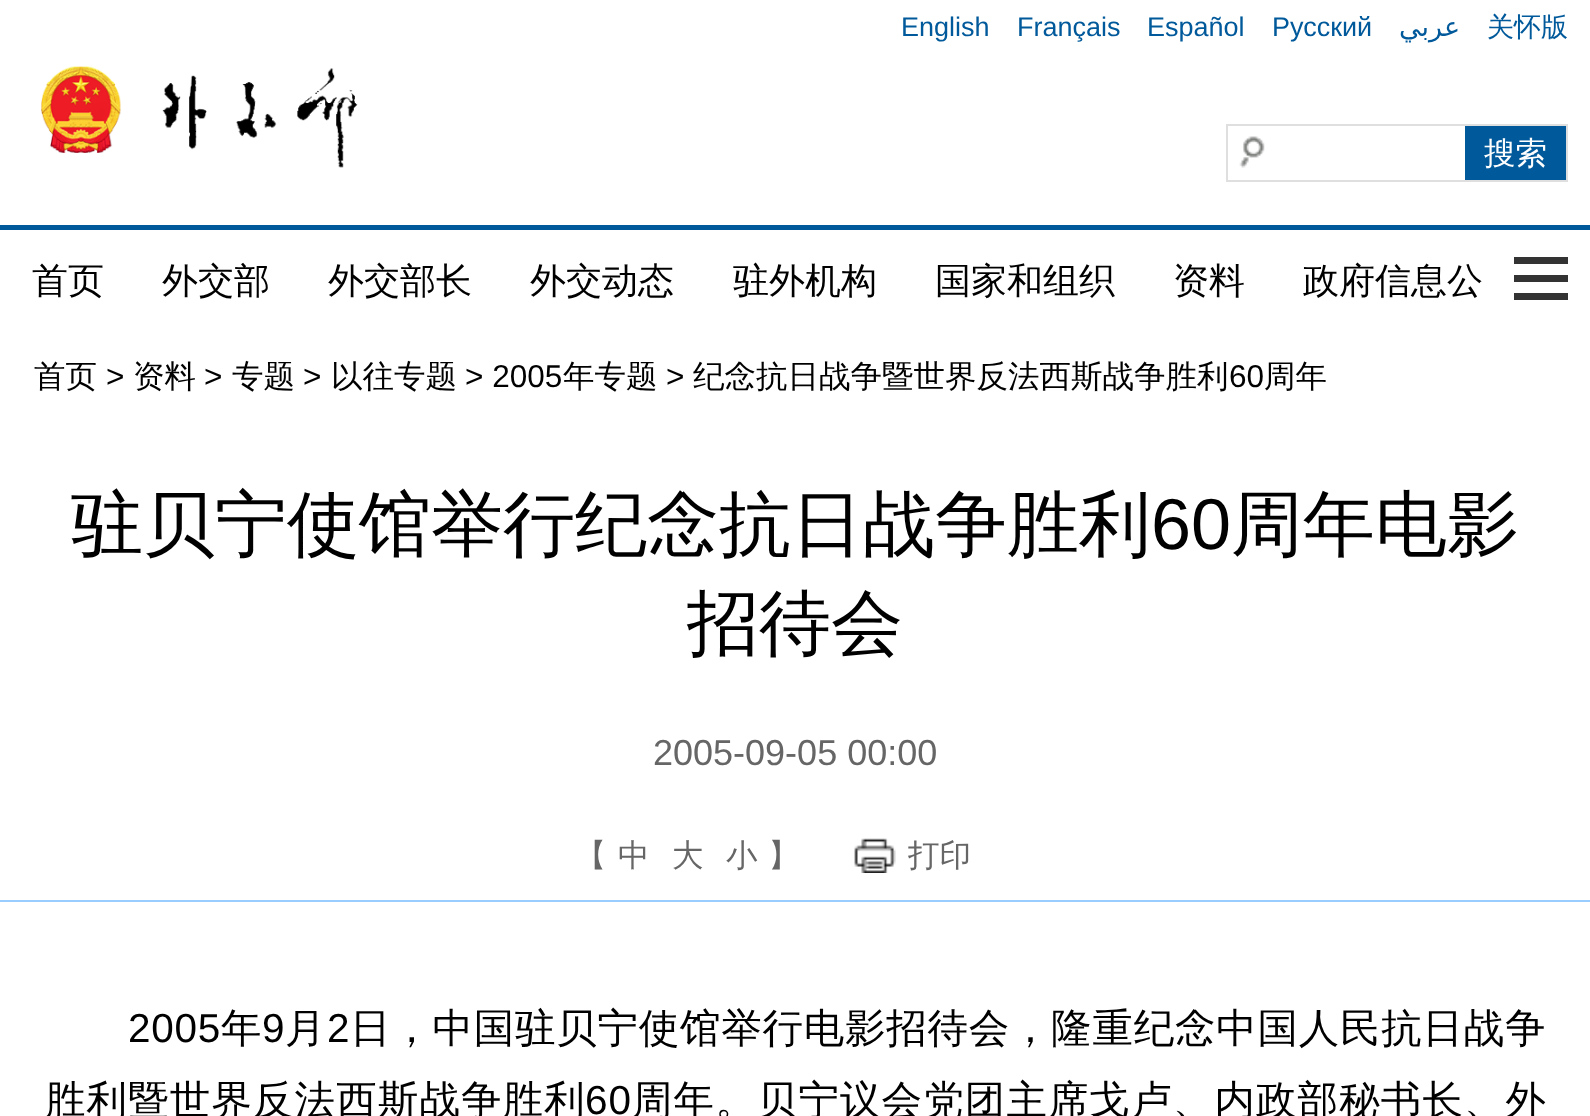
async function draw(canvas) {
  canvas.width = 1590;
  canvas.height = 1116;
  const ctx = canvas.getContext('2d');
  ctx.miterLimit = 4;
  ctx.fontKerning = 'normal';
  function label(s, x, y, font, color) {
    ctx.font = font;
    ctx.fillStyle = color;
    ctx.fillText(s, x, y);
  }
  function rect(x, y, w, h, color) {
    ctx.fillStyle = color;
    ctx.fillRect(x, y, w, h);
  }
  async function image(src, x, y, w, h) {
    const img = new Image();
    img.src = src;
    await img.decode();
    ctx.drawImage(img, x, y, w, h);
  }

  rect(0, 0, 1590, 1116, '#fff');
  rect(0, 225, 1590, 5, '#00599a');
  await image('assets/img1.png', 41, 66, 317, 102);
  label('English', 901, 36, '27px Liberation Sans', '#00599a');
  label('Français', 1017, 36, '27px Liberation Sans', '#00599a');
  label('Español', 1147, 36, '27px Liberation Sans', '#00599a');
  label('Русский', 1272, 36, '27px Liberation Sans', '#00599a');
  ctx.direction = 'rtl';
  label('عربي', 1460, 36, '27px DejaVu Sans', '#00599a');
  ctx.direction = 'ltr';
  label('关怀版', 1487, 36, '500 27px WenQuanYi Zen Hei', '#00599a');
  ctx.strokeStyle = '#dfdfdf';
  ctx.lineWidth = 2;
  ctx.strokeRect(1227, 125, 340, 56);
  await image('assets/img2.png', 1239, 136, 26, 32);
  rect(1465, 126, 101, 54, '#00599a');
  label('搜索', 1484, 164, '500 31.5px WenQuanYi Zen Hei', '#fff');
  label('首页', 32, 293, '500 36px WenQuanYi Zen Hei', '#000');
  label('外交部', 162, 293, '500 36px WenQuanYi Zen Hei', '#000');
  label('外交部长', 328, 293, '500 36px WenQuanYi Zen Hei', '#000');
  label('外交动态', 530, 293, '500 36px WenQuanYi Zen Hei', '#000');
  label('驻外机构', 733, 293, '500 36px WenQuanYi Zen Hei', '#000');
  label('国家和组织', 935, 293, '500 36px WenQuanYi Zen Hei', '#000');
  label('资料', 1173, 293, '500 36px WenQuanYi Zen Hei', '#000');
  label('政府信息公', 1303, 293, '500 36px WenQuanYi Zen Hei', '#000');
  rect(1514, 275, 54, 7, '#333');
  rect(1514, 257, 54, 7, '#333');
  rect(1514, 293, 54, 7, '#333');
  label('首页', 34, 387, '500 31.5px WenQuanYi Zen Hei', '#000');
  label('>', 106, 387, '31.5px Liberation Sans', '#000');
  label('资料', 133, 387, '500 31.5px WenQuanYi Zen Hei', '#000');
  label('>', 204, 387, '31.5px Liberation Sans', '#000');
  label('专题', 232, 387, '500 31.5px WenQuanYi Zen Hei', '#000');
  label('>', 303, 387, '31.5px Liberation Sans', '#000');
  label('以往专题', 331, 387, '500 31.5px WenQuanYi Zen Hei', '#000');
  label('> 2005', 465, 387, '31.5px Liberation Sans', '#000');
  label('年专题', 563, 387, '500 31.5px WenQuanYi Zen Hei', '#000');
  label('>', 666, 387, '31.5px Liberation Sans', '#000');
  label('纪念抗日战争暨世界反法西斯战争胜利', 693, 387, '500 31.5px WenQuanYi Zen Hei', '#000');
  label('60', 1229, 387, '31.5px Liberation Sans', '#000');
  label('周年', 1264, 387, '500 31.5px WenQuanYi Zen Hei', '#000');
  rect(0, 900, 1590, 2, '#99cdff');
  label('驻贝宁使馆举行纪念抗日战争胜利', 71, 549, '500 72px WenQuanYi Zen Hei', '#000');
  label('60', 1151, 549, '72px Liberation Sans', '#000');
  label('周年电影', 1231, 549, '500 72px WenQuanYi Zen Hei', '#000');
  label('招待会', 687, 648, '500 72px WenQuanYi Zen Hei', '#000');
  label('2005-09-05 00:00', 653, 765, '36px Liberation Sans', '#666');
  label('【', 575, 866, '500 31.5px WenQuanYi Zen Hei', '#666');
  label('中', 618, 866, '500 31.5px WenQuanYi Zen Hei', '#666');
  label('大', 672, 866, '500 31.5px WenQuanYi Zen Hei', '#666');
  label('小', 726, 866, '500 31.5px WenQuanYi Zen Hei', '#666');
  label('】', 768, 866, '500 31.5px WenQuanYi Zen Hei', '#666');
  await image('assets/img3.png', 854, 838, 42, 35);
  label('打印', 908, 866, '500 31.5px WenQuanYi Zen Hei', '#666');
  ctx.letterSpacing = '0.75px';
  label('2005', 128, 1042, '40.5px Liberation Sans', '#000');
  label('年', 221, 1042, '500 40.5px WenQuanYi Zen Hei', '#000');
  label('9', 262, 1042, '40.5px Liberation Sans', '#000');
  label('月', 285, 1042, '500 40.5px WenQuanYi Zen Hei', '#000');
  label('2', 327, 1042, '40.5px Liberation Sans', '#000');
  label('日，中国驻贝宁使馆举行电影招待会，隆重纪念中国人民抗日战争', 350, 1042, '500 40.5px WenQuanYi Zen Hei', '#000');
  ctx.letterSpacing = '1.1px';
  label('胜利暨世界反法西斯战争胜利', 45, 1114, '500 40.5px WenQuanYi Zen Hei', '#000');
  label('60', 585, 1114, '40.5px Liberation Sans', '#000');
  label('周年。贝宁议会党团主席戈卢、内政部秘书长、外', 632, 1114, '500 40.5px WenQuanYi Zen Hei', '#000');
}

draw(document.querySelector('canvas'));
